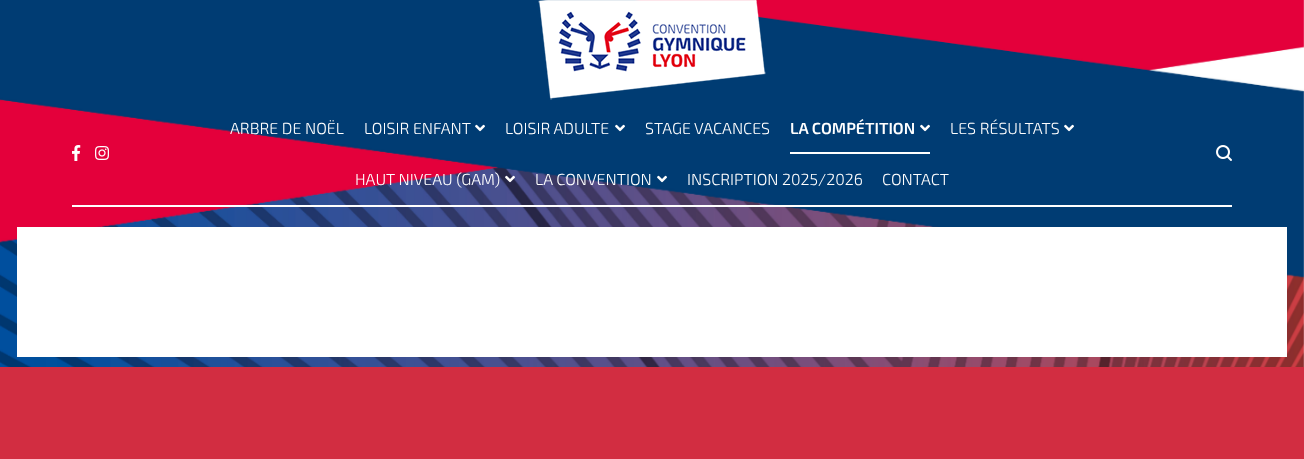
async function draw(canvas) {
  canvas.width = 1304;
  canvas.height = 459;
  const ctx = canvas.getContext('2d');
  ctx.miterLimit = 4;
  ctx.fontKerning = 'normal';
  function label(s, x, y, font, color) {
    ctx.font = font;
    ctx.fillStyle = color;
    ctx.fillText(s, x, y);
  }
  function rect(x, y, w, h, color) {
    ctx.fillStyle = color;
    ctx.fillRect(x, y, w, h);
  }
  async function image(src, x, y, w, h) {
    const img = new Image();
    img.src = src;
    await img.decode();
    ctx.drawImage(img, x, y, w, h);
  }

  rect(0, 0, 1304, 459, '#fff');
  await image('assets/img1.png', 0, 0, 1304, 367);
  await image('assets/img2.png', 538, 0, 228, 100);
  rect(72, 205, 1160, 2, '#fff');
  await image('assets/img3.png', 72, 145, 9, 16);
  await image('assets/img4.png', 95, 146, 14, 14);
  label('ARBRE DE NOËL', 230, 134, '300 16px "Exo 2"', '#fff');
  label('LOISIR ENFANT', 364, 134, '300 16px "Exo 2"', '#fff');
  await image('assets/img5.png', 475, 124, 10, 8);
  label('LOISIR ADULTE', 505, 134, '300 16px "Exo 2"', '#fff');
  await image('assets/img5.png', 615, 124, 10, 8);
  label('STAGE VACANCES', 645, 134, '300 16px "Exo 2"', '#fff');
  rect(790, 152, 140, 2, '#fff');
  label('LA COMPÉTITION', 790, 134, '600 16px "Exo 2"', '#fff');
  await image('assets/img5.png', 920, 124, 10, 8);
  label('LES RÉSULTATS', 950, 134, '300 16px "Exo 2"', '#fff');
  await image('assets/img5.png', 1064, 124, 10, 8);
  label('HAUT NIVEAU (GAM)', 355, 185, '300 16px "Exo 2"', '#fff');
  await image('assets/img6.png', 505, 175, 10, 8);
  label('LA CONVENTION', 535, 185, '300 16px "Exo 2"', '#fff');
  await image('assets/img5.png', 657, 175, 10, 8);
  label('INSCRIPTION 2025/2026', 687, 185, '300 16px "Exo 2"', '#fff');
  label('CONTACT', 882, 185, '300 16px "Exo 2"', '#fff');
  await image('assets/img7.png', 1216, 145, 16, 16);
  rect(17, 227, 1270, 130, '#fff');
  rect(0, 367, 1304, 92, '#d22d41');
}

draw(document.querySelector('canvas'));
